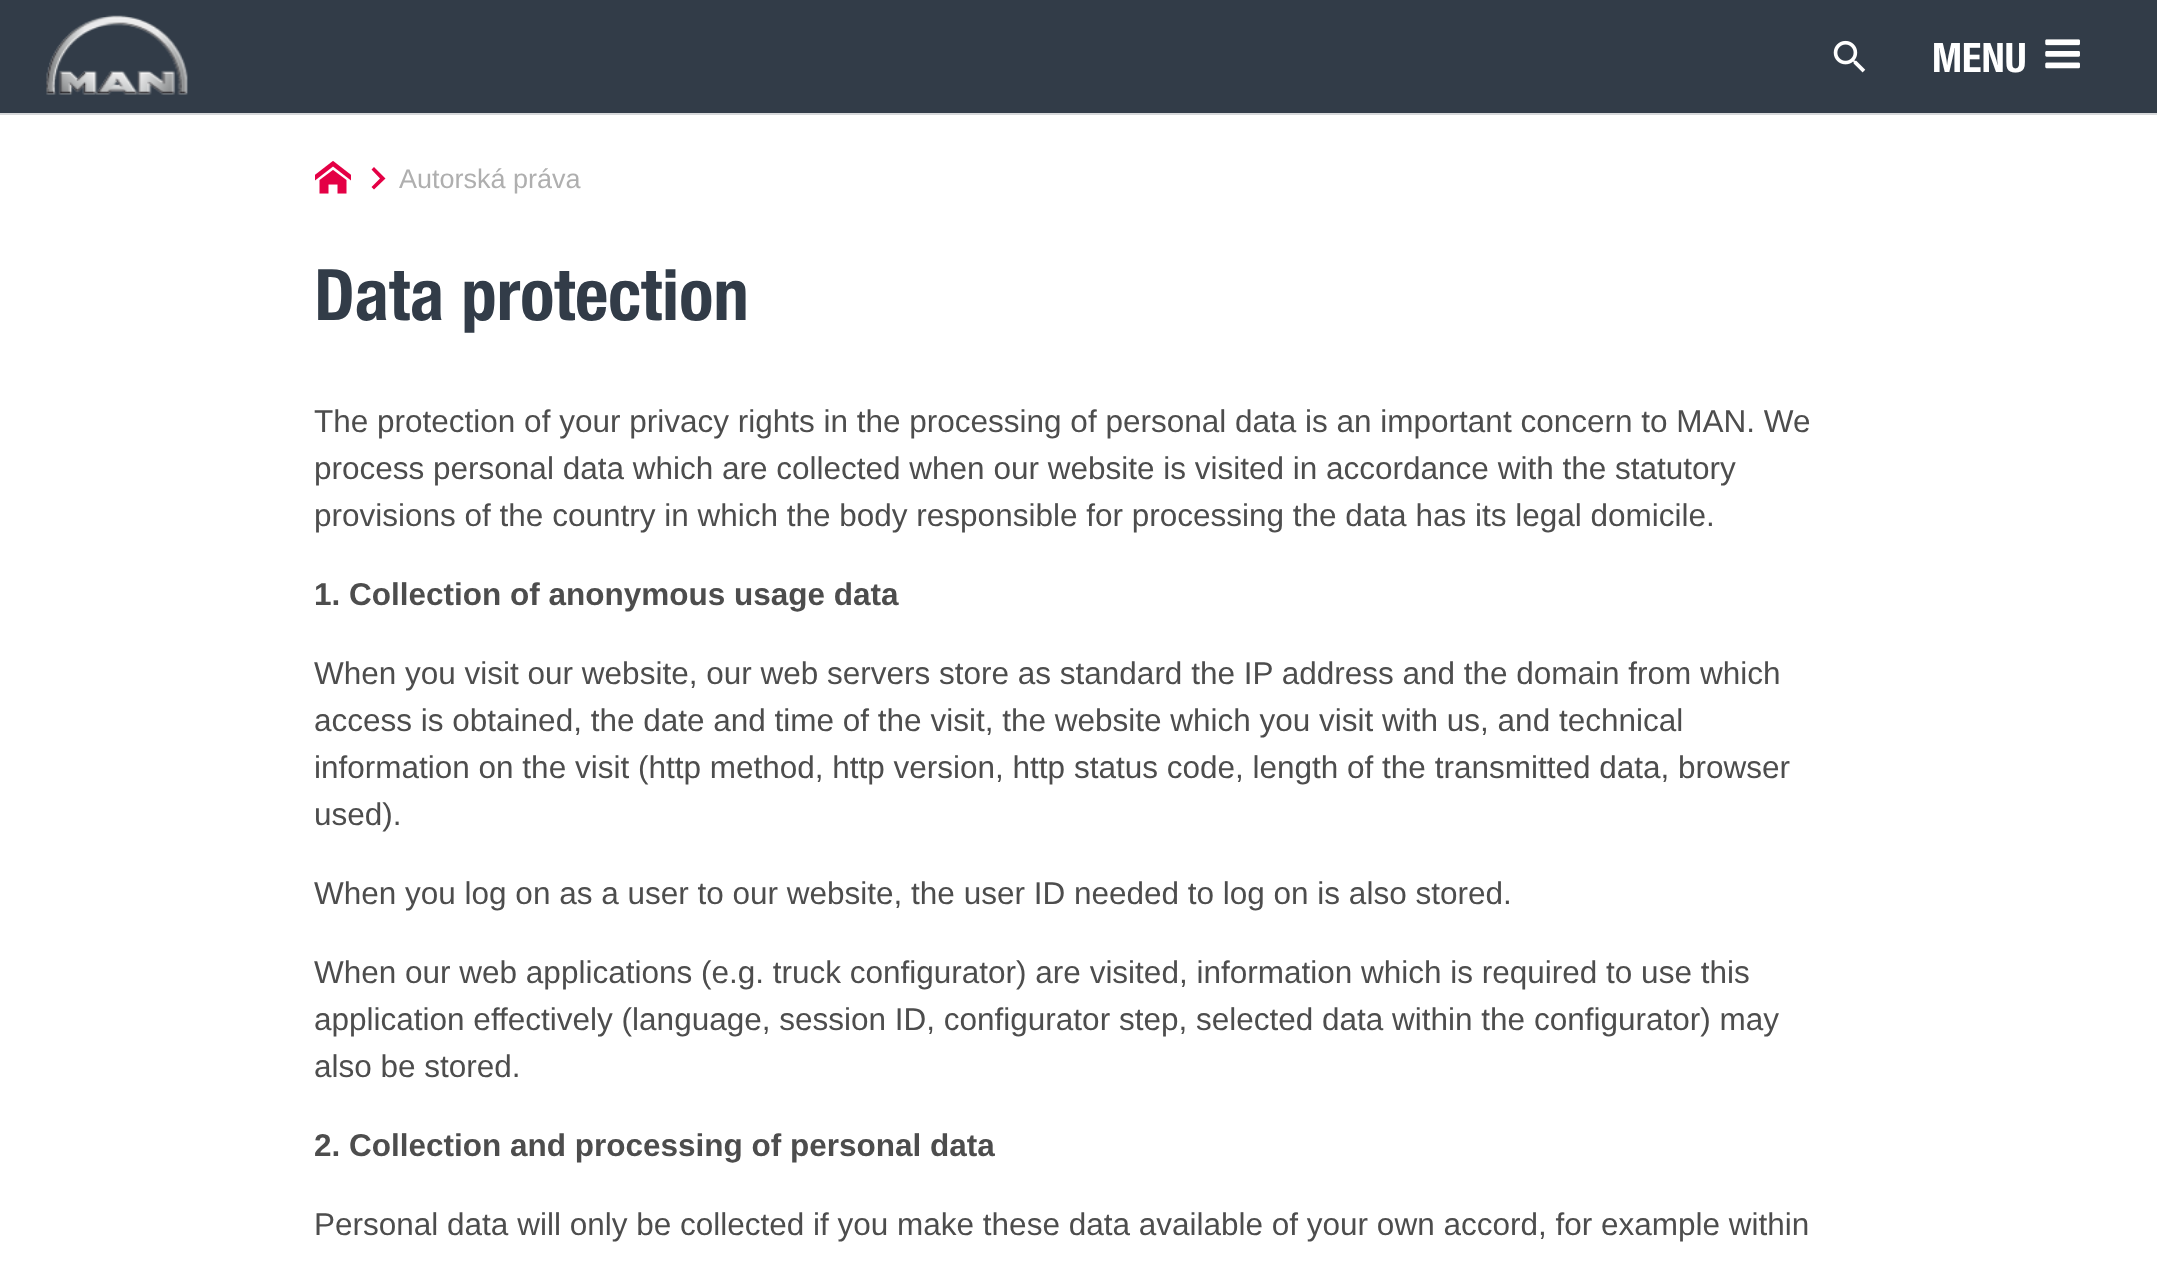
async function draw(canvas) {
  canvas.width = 2157;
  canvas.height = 1270;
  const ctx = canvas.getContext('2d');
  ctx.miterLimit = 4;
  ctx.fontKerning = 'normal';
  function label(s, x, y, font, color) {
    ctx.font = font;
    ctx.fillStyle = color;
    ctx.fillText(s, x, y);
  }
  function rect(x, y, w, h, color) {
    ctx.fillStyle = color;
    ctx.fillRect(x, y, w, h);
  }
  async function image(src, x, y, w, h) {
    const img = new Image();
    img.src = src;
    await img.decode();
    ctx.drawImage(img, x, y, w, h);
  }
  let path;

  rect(0, 0, 2157, 1270, '#fff');
  rect(0, 0, 2157, 113, '#323c48');
  await image('assets/img1.png', 46, 15, 142, 80);
  await image('assets/img2.png', 1833, 40, 33, 33);
  label('MENU', 1932, 72, 'bold 40.5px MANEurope', '#fff');
  await image('assets/img3.png', 2045, 39, 35, 30);
  rect(0, 113, 2157, 2, '#d6d8da');
  await image('assets/img4.png', 315, 161, 36, 33);
  ctx.fillStyle = '#e40045';
  path = new Path2D('M371.5 187L380 178.5L371.5 169.5L374 167L385.5 178.5L374 189.5Z');
  ctx.fill(path);
  label('Autorská práva', 399, 188, '27px Liberation Sans', '#afafaf');
  label('Data protection', 314, 320, 'bold 71px MANEurope', '#323c48');
  label('The protection of your privacy rights in the processing of personal data is an important concern to MAN. We', 314, 432, '31.5px Liberation Sans', '#4d4d4d');
  label('process personal data which are collected when our website is visited in accordance with the statutory', 314, 479, '31.5px Liberation Sans', '#4d4d4d');
  label('provisions of the country in which the body responsible for processing the data has its legal domicile.', 314, 526, '31.5px Liberation Sans', '#4d4d4d');
  label('1. Collection of anonymous usage data', 314, 605, 'bold 31.5px Liberation Sans', '#4d4d4d');
  label('When you visit our website, our web servers store as standard the IP address and the domain from which', 314, 684, '31.5px Liberation Sans', '#4d4d4d');
  label('access is obtained, the date and time of the visit, the website which you visit with us, and technical', 314, 731, '31.5px Liberation Sans', '#4d4d4d');
  label('information on the visit (http method, http version, http status code, length of the transmitted data, browser', 314, 778, '31.5px Liberation Sans', '#4d4d4d');
  label('used).', 314, 825, '31.5px Liberation Sans', '#4d4d4d');
  label('When you log on as a user to our website, the user ID needed to log on is also stored.', 314, 904, '31.5px Liberation Sans', '#4d4d4d');
  label('When our web applications (e.g. truck configurator) are visited, information which is required to use this', 314, 983, '31.5px Liberation Sans', '#4d4d4d');
  label('application effectively (language, session ID, configurator step, selected data within the configurator) may', 314, 1030, '31.5px Liberation Sans', '#4d4d4d');
  label('also be stored.', 314, 1077, '31.5px Liberation Sans', '#4d4d4d');
  label('2. Collection and processing of personal data', 314, 1156, 'bold 31.5px Liberation Sans', '#4d4d4d');
  label('Personal data will only be collected if you make these data available of your own accord, for example within', 314, 1235, '31.5px Liberation Sans', '#4d4d4d');
}

draw(document.querySelector('canvas'));
